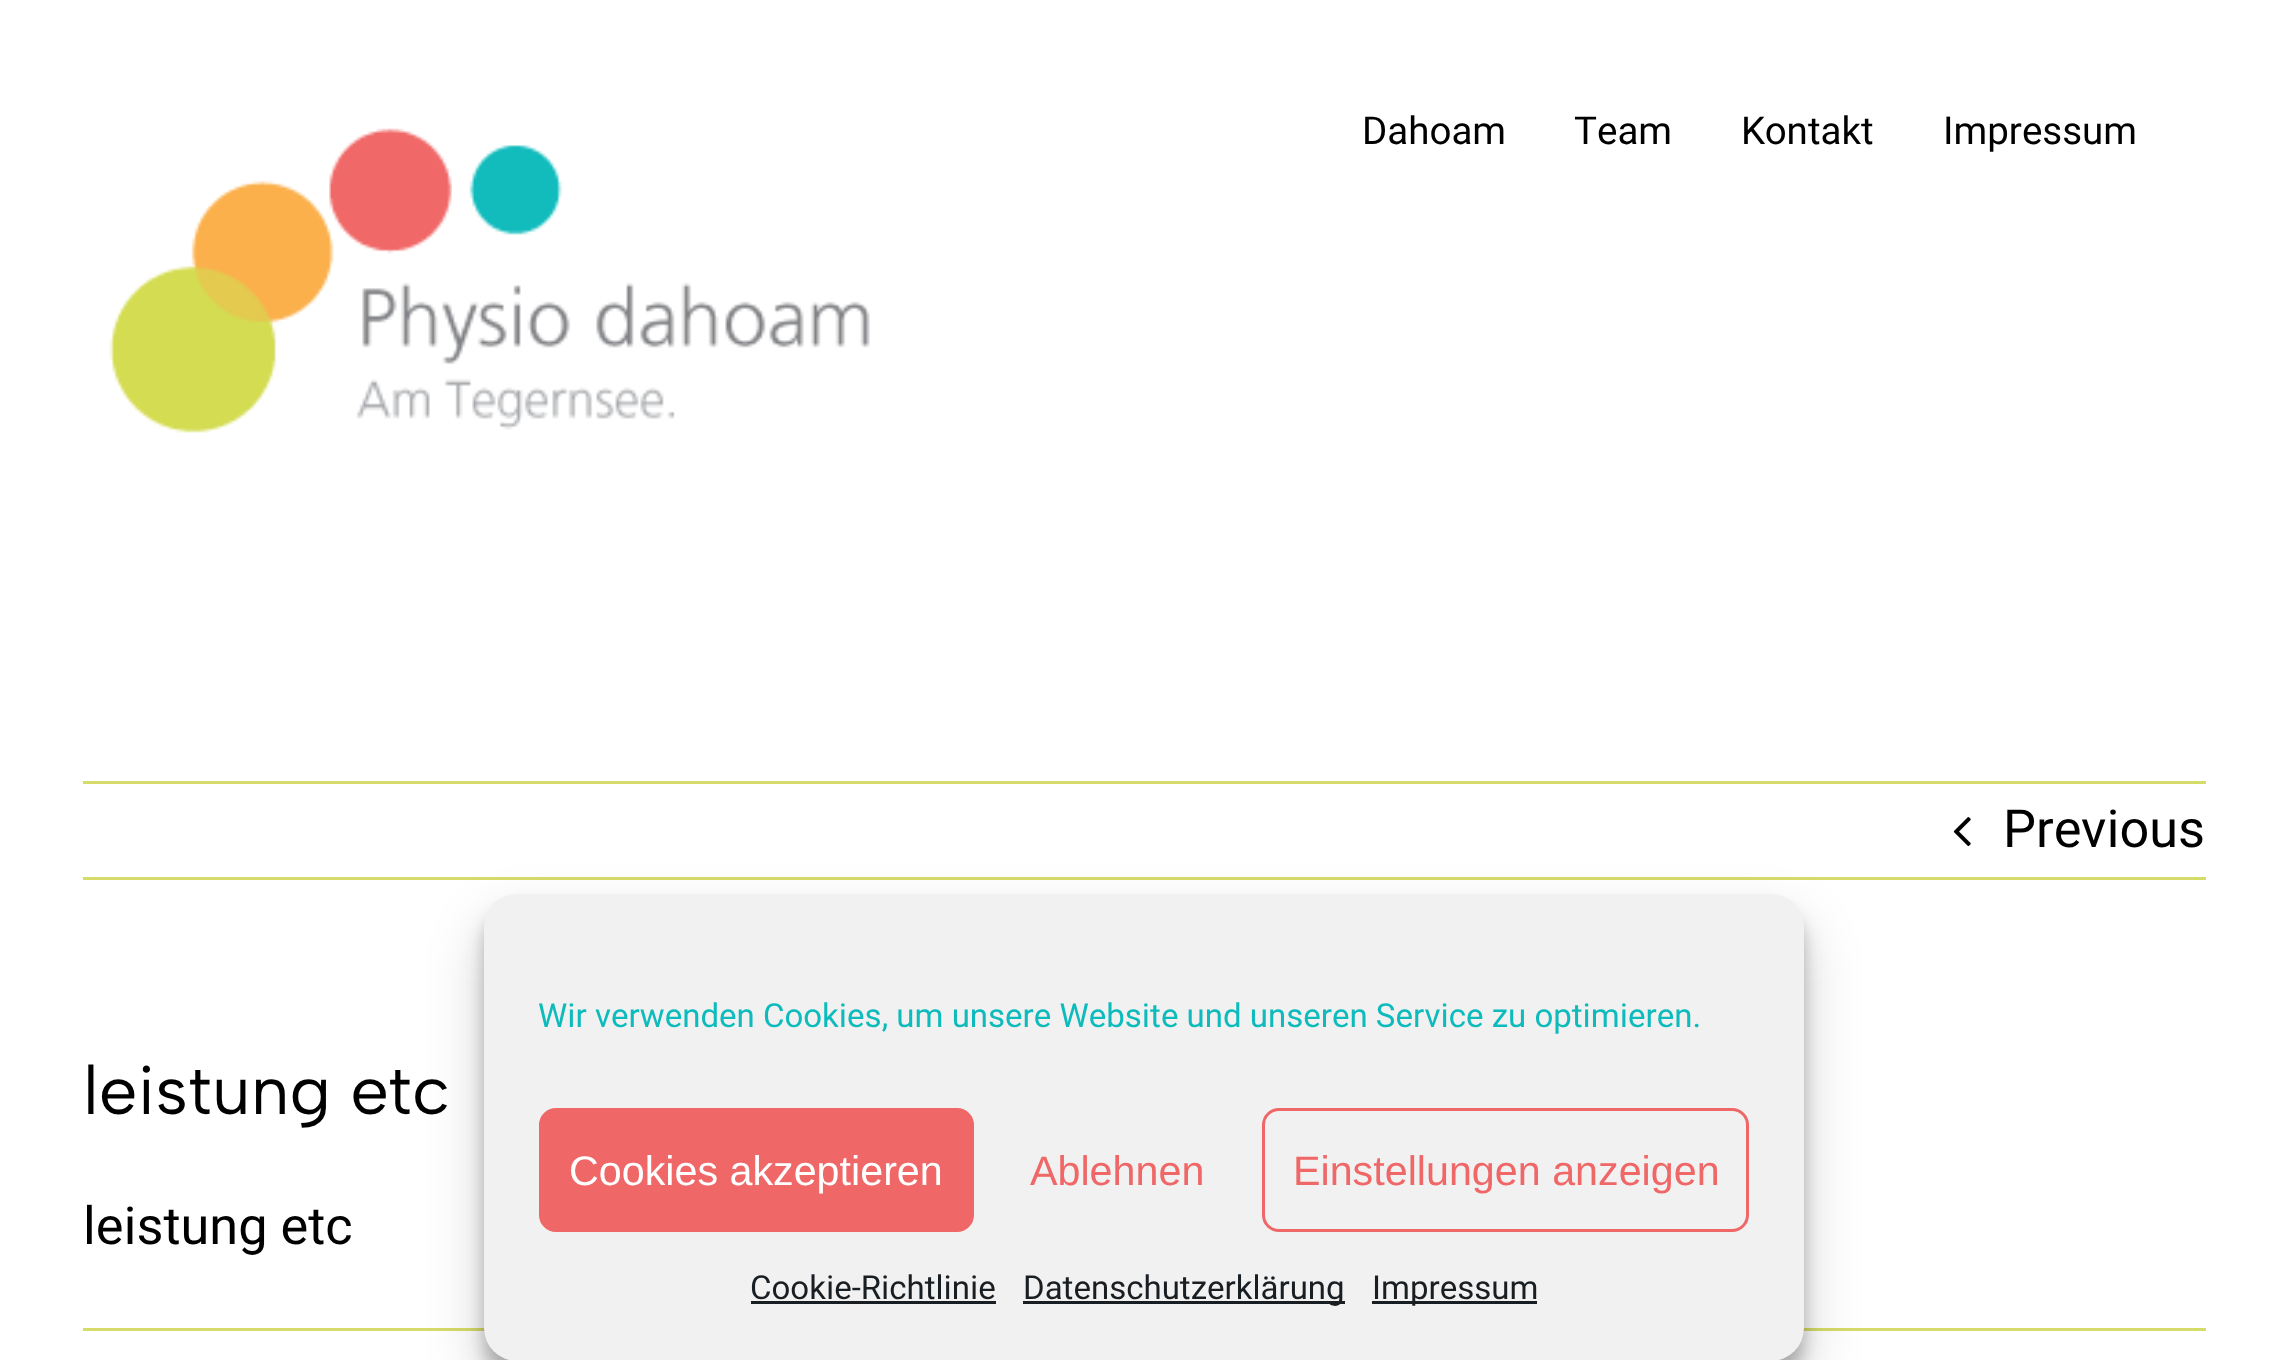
async function draw(canvas) {
  canvas.width = 2287;
  canvas.height = 1360;
  const ctx = canvas.getContext('2d');
  ctx.miterLimit = 4;
  ctx.fontKerning = 'normal';
  function label(s, x, y, font, color) {
    ctx.font = font;
    ctx.fillStyle = color;
    ctx.fillText(s, x, y);
  }
  function rect(x, y, w, h, color) {
    ctx.fillStyle = color;
    ctx.fillRect(x, y, w, h);
  }
  function roundedRect(x, y, w, h, r, color) {
    ctx.fillStyle = color;
    ctx.beginPath();
    ctx.roundRect(x, y, w, h, r);
    ctx.fill();
  }
  async function image(src, x, y, w, h) {
    const img = new Image();
    img.src = src;
    await img.decode();
    ctx.drawImage(img, x, y, w, h);
  }

  rect(0, 0, 2287, 1360, '#fff');
  await image('assets/img1.png', 109, 128, 761, 305);
  label('Dahoam', 1362, 144, '38.5px Heebo', '#000');
  label('Team', 1574, 144, '38.5px Heebo', '#000');
  label('Kontakt', 1741, 144, '38.5px Heebo', '#000');
  label('Impressum', 1943, 144, '38.5px Heebo', '#000');
  rect(83, 781, 2123, 3, '#d6dc69');
  rect(83, 877, 2123, 3, '#d6dc69');
  await image('assets/img2.png', 1953, 817, 18, 30);
  label('Previous', 2003, 847, '52.25px Heebo', '#000');
  label('leistung etc', 83, 1114, '68.75px Albert Sans', '#000');
  label('leistung etc', 83, 1244, '52.25px Heebo', '#000');
  rect(83, 1328, 2123, 3, '#d6dc69');
  ctx.fillStyle = '#0000003b';
  ctx.filter = 'blur(8px)';
  ctx.beginPath();
  ctx.roundRect(484, 910, 1320, 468, 33);
  ctx.fill();
  ctx.filter = 'none';
  ctx.fillStyle = '#00000030';
  ctx.filter = 'blur(27.5px)';
  ctx.beginPath();
  ctx.roundRect(484, 921, 1320, 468, 33);
  ctx.fill();
  ctx.filter = 'none';
  roundedRect(484, 894, 1320, 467, 33, '#f1f1f1');
  label('Wir verwenden Cookies, um unsere Website und unseren Service zu optimieren.', 538, 1027, '33px Heebo', '#0dbbbc');
  ctx.fillStyle = '#ef6767';
  ctx.beginPath();
  ctx.roundRect(540.5, 1109.5, 432, 121, 15.5);
  ctx.fill();
  ctx.strokeStyle = '#ef6767';
  ctx.lineWidth = 3;
  ctx.stroke();
  label('Cookies akzeptieren', 569, 1185, '41.25px Liberation Sans', '#fff');
  label('Ablehnen', 1030, 1185, '41.25px Liberation Sans', '#ef6767');
  ctx.beginPath();
  ctx.roundRect(1263.5, 1109.5, 484, 121, 15.5);
  ctx.stroke();
  label('Einstellungen anzeigen', 1293, 1185, '41.25px Liberation Sans', '#ef6767');
  label('Cookie-Richtlinie', 750, 1299, '33px Heebo', '#191e23');
  rect(751, 1301, 245, 3, '#191e23');
  rect(1023, 1301, 322, 3, '#191e23');
  label('Datenschutzerklärung', 1023, 1299, '33px Heebo', '#191e23');
  rect(1372, 1301, 165, 3, '#191e23');
  label('Impressum', 1372, 1299, '33px Heebo', '#191e23');
}

draw(document.querySelector('canvas'));
